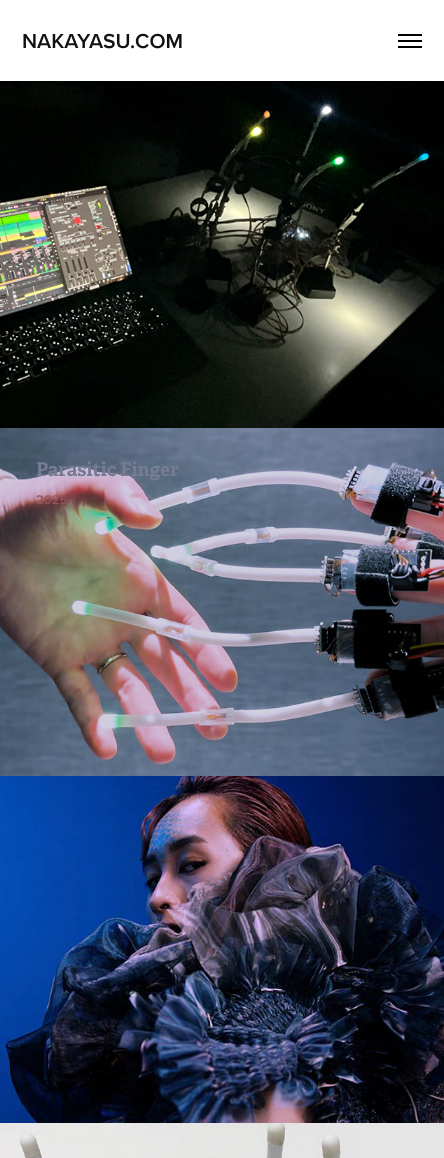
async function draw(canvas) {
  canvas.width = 444;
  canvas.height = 1158;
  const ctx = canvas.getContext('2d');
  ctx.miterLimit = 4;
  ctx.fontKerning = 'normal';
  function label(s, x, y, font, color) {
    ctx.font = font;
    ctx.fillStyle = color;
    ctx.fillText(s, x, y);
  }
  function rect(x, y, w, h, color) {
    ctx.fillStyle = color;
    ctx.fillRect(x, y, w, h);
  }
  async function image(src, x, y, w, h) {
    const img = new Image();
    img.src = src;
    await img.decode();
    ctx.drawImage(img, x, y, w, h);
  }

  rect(0, 0, 444, 1158, '#fff');
  label('NAKAYASU.COM', 22, 48, '600 21px Proxima Nova', '#111');
  rect(398, 34, 24, 2, '#000');
  rect(398, 40, 24, 2, '#000');
  rect(398, 46, 24, 2, '#000');
  await image('assets/img1.png', 0, 81, 444, 347);
  await image('assets/img2.png', 0, 428, 444, 348);
  label('Parasitic Finger', 36, 476, 'bold 19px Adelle', '#757c94');
  label('2025', 36, 504, '600 13px Proxima Nova', '#90565c');
  await image('assets/img3.png', 0, 776, 444, 347);
  await image('assets/img4.png', 0, 1123, 444, 35);
}

draw(document.querySelector('canvas'));
